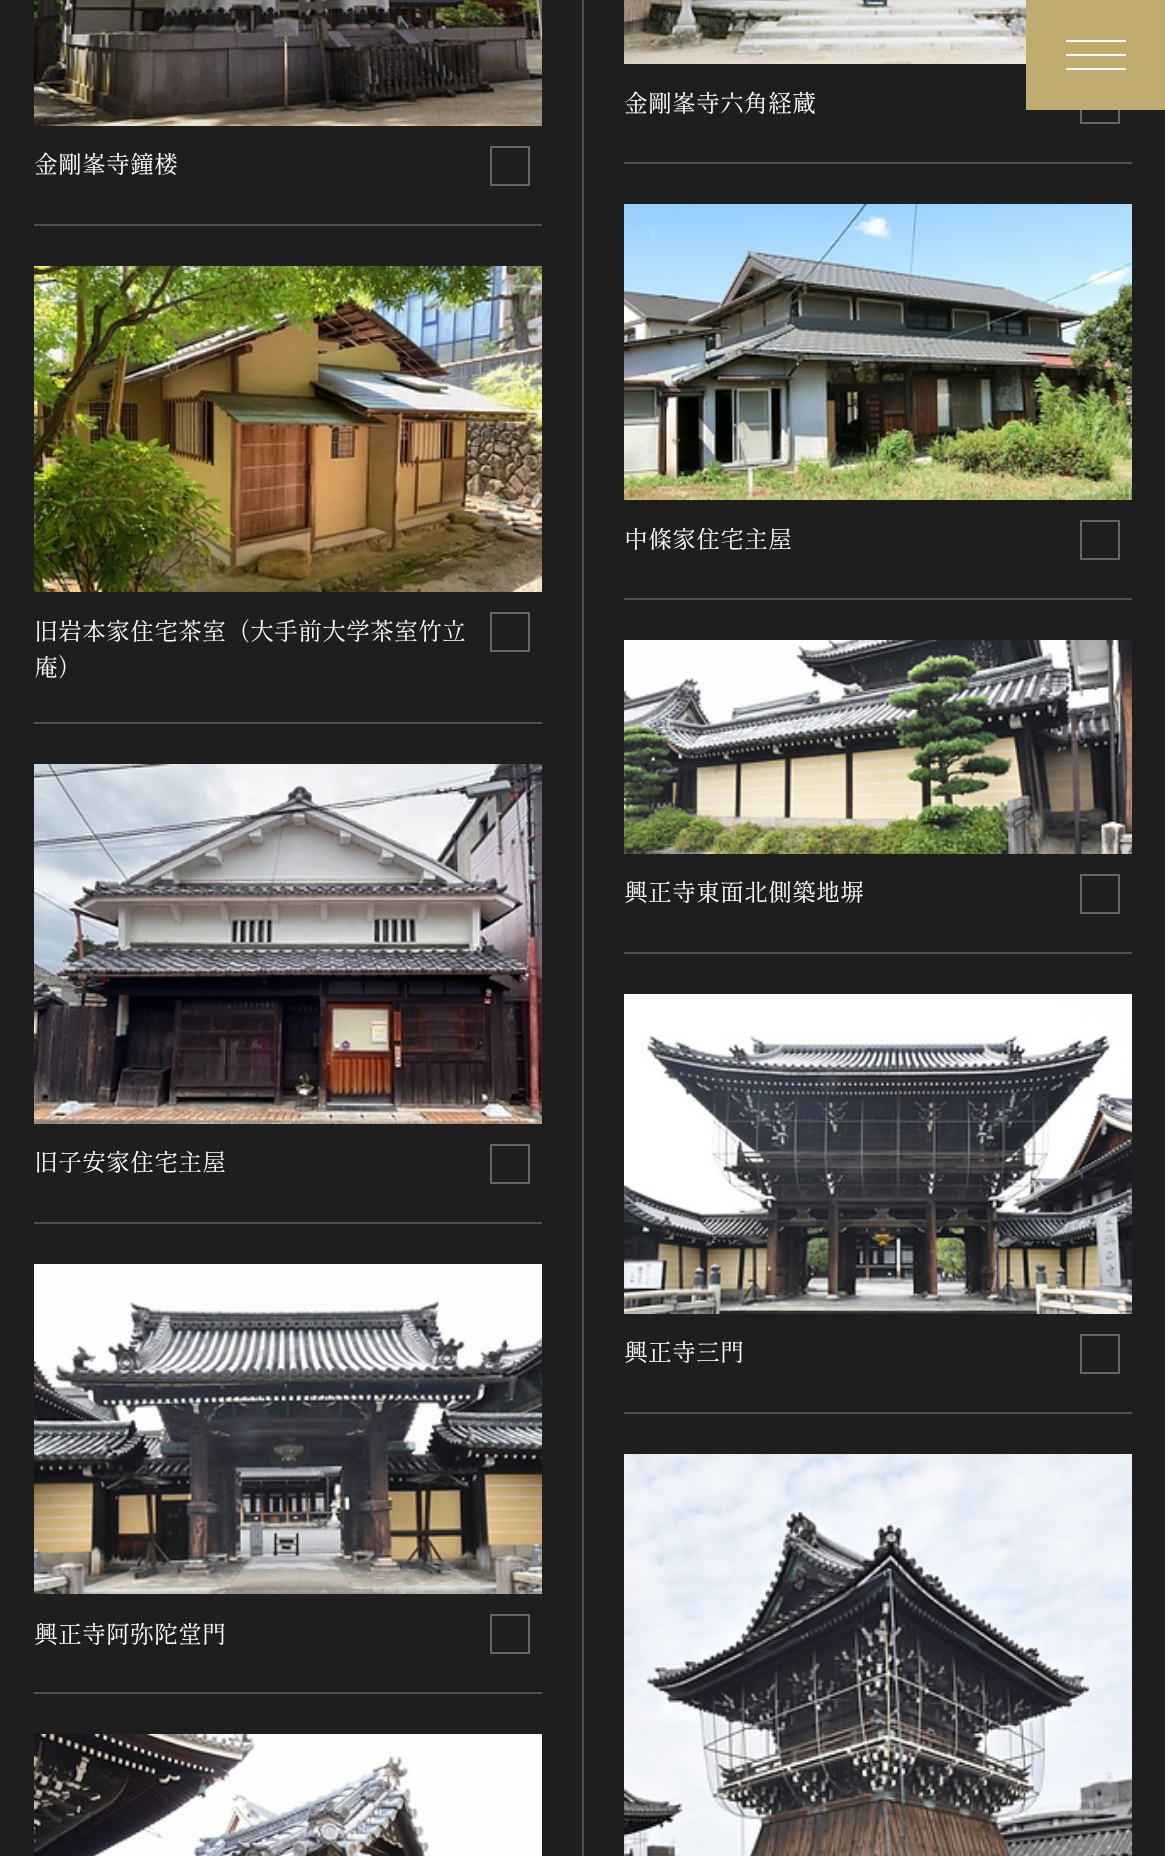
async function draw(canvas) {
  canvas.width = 1165;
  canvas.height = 1856;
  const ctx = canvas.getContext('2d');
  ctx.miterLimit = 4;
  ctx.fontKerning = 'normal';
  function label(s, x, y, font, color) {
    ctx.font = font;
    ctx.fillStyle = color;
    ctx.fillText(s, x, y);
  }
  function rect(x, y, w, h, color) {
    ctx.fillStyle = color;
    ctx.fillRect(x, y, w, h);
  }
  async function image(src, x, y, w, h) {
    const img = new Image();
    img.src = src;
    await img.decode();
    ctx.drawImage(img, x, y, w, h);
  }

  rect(0, 0, 1165, 1856, '#1e1e1e');
  ctx.strokeStyle = '#656565';
  ctx.lineWidth = 2;
  ctx.strokeRect(1081, 85, 38, 38);
  rect(1026, 0, 139, 110, '#c0ac6e');
  rect(1066, 40, 60, 2, '#fff');
  rect(1066, 54, 60, 2, '#fff');
  rect(1066, 68, 60, 2, '#fff');
  rect(582, 0, 2, 1856, '#505050');
  await image('assets/img1.png', 34, 0, 508, 126);
  label('金剛峯寺鐘楼', 34, 173, '24px Shippori Mincho', '#fff');
  ctx.strokeRect(491, 147, 38, 38);
  rect(34, 224, 508, 2, '#505050');
  await image('assets/img2.png', 34, 266, 508, 326);
  label('旧岩本家住宅茶室（大手前大学茶室竹立', 34, 640, '24px Shippori Mincho', '#fff');
  label('庵）', 34, 676, '24px Shippori Mincho', '#fff');
  ctx.strokeRect(491, 613, 38, 38);
  rect(34, 722, 508, 2, '#505050');
  await image('assets/img3.png', 34, 764, 508, 360);
  label('旧子安家住宅主屋', 34, 1171, '24px Shippori Mincho', '#fff');
  ctx.strokeRect(491, 1145, 38, 38);
  rect(34, 1222, 508, 2, '#505050');
  await image('assets/img4.png', 34, 1264, 508, 330);
  label('興正寺阿弥陀堂門', 34, 1643, '24px Shippori Mincho', '#fff');
  ctx.strokeRect(491, 1615, 38, 38);
  rect(34, 1692, 508, 2, '#505050');
  await image('assets/img5.png', 34, 1734, 508, 122);
  await image('assets/img6.png', 624, 0, 402, 64);
  label('金剛峯寺六角経蔵', 624, 112, '24px Shippori Mincho', '#fff');
  rect(624, 162, 508, 2, '#505050');
  await image('assets/img7.png', 624, 204, 508, 296);
  label('中條家住宅主屋', 624, 548, '24px Shippori Mincho', '#fff');
  ctx.strokeRect(1081, 521, 38, 38);
  rect(624, 598, 508, 2, '#505050');
  await image('assets/img8.png', 624, 640, 508, 214);
  label('興正寺東面北側築地塀', 624, 901, '24px Shippori Mincho', '#fff');
  ctx.strokeRect(1081, 875, 38, 38);
  rect(624, 952, 508, 2, '#505050');
  await image('assets/img9.png', 624, 994, 508, 320);
  label('興正寺三門', 624, 1361, '24px Shippori Mincho', '#fff');
  ctx.strokeRect(1081, 1335, 38, 38);
  rect(624, 1412, 508, 2, '#505050');
  await image('assets/img10.png', 624, 1454, 508, 402);
}

draw(document.querySelector('canvas'));
